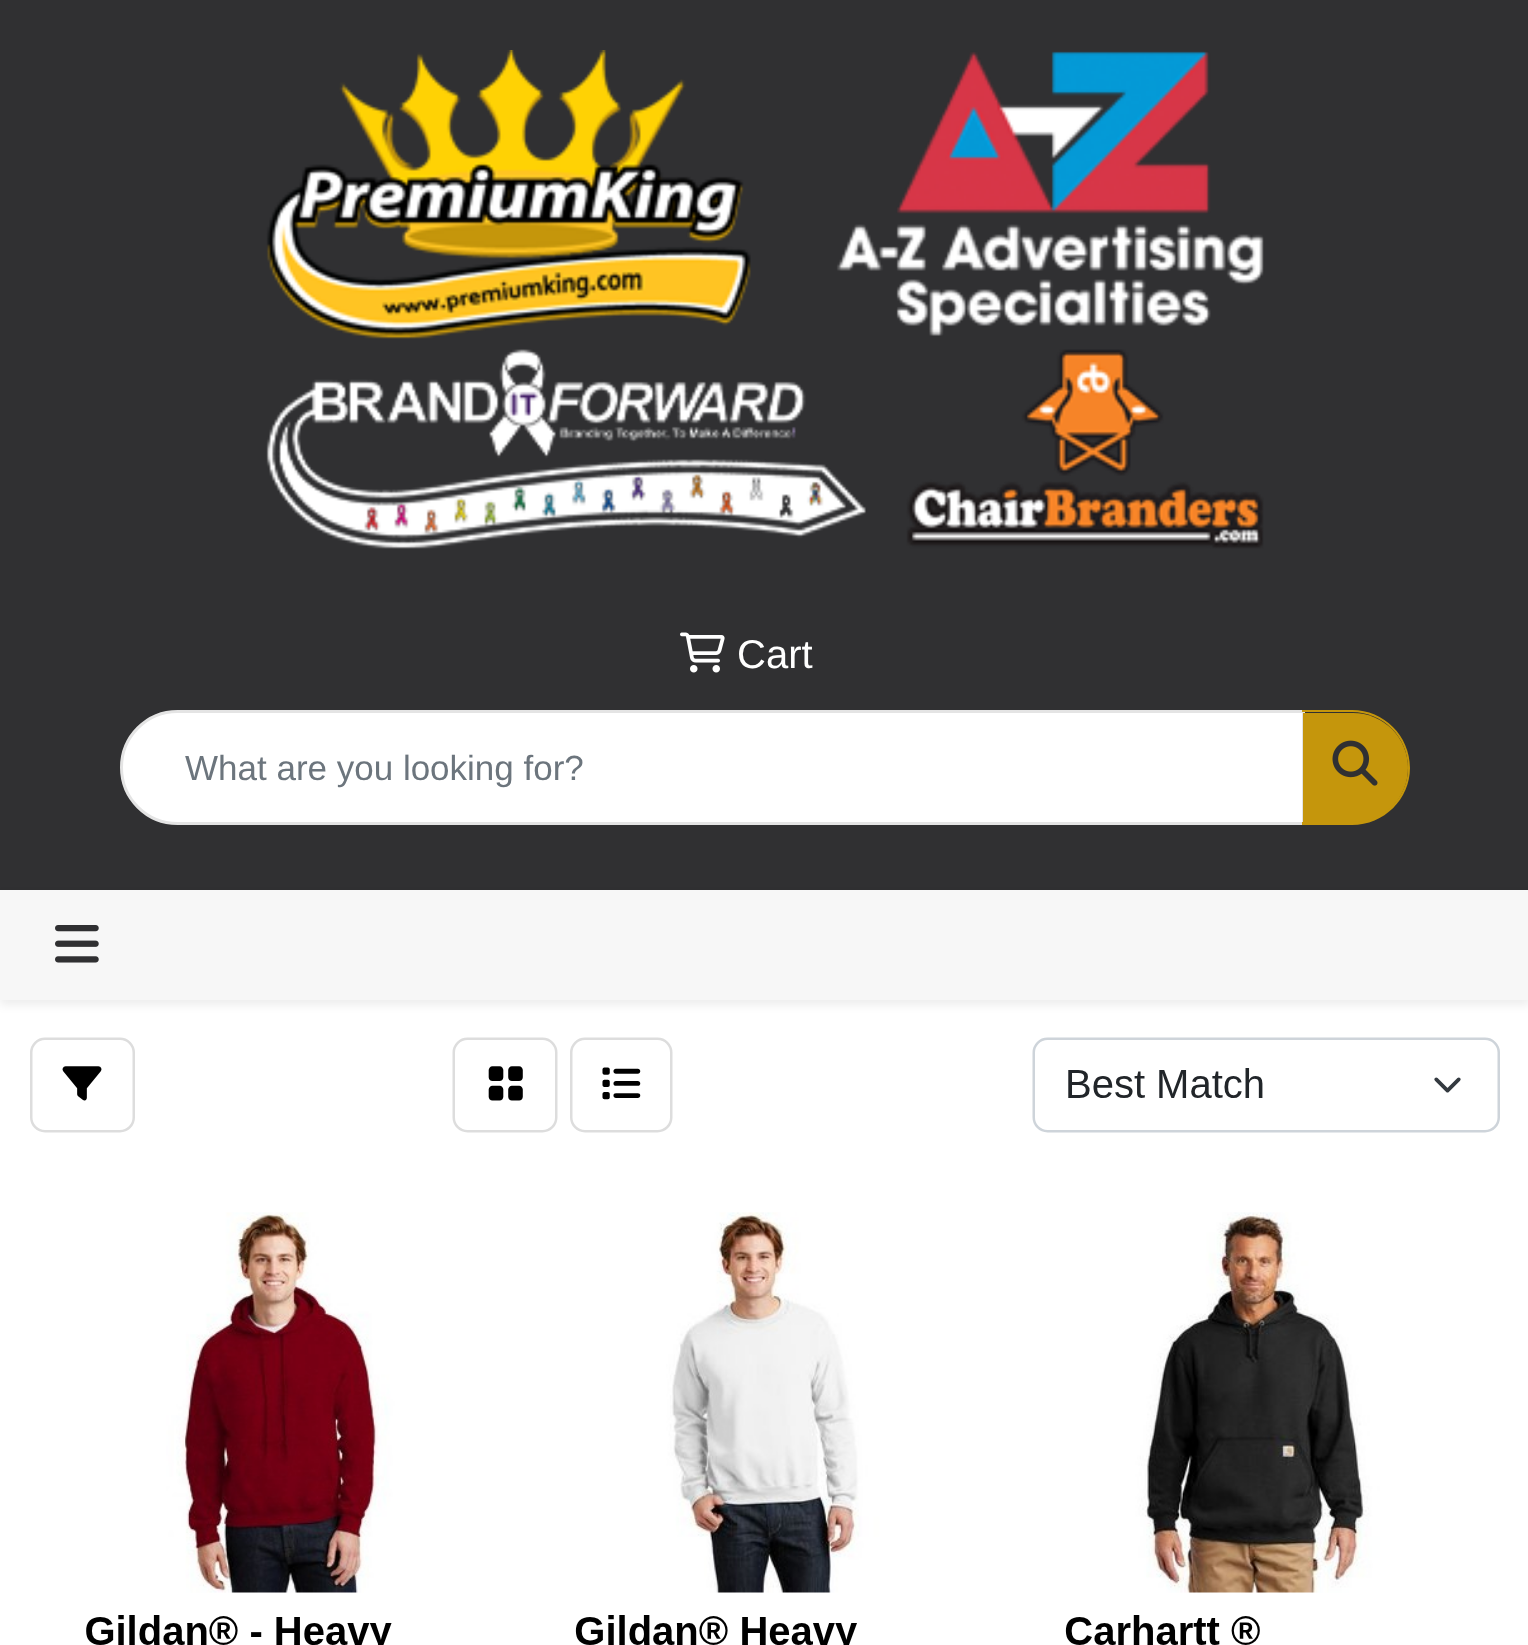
async function draw(canvas) {
  canvas.width = 1528;
  canvas.height = 1645;
  const ctx = canvas.getContext('2d');
  ctx.miterLimit = 4;
  ctx.fontKerning = 'normal';
  function label(s, x, y, font, color) {
    ctx.font = font;
    ctx.fillStyle = color;
    ctx.fillText(s, x, y);
  }
  function rect(x, y, w, h, color) {
    ctx.fillStyle = color;
    ctx.fillRect(x, y, w, h);
  }
  async function image(src, x, y, w, h) {
    const img = new Image();
    img.src = src;
    await img.decode();
    ctx.drawImage(img, x, y, w, h);
  }
  let path;

  rect(0, 0, 1528, 1645, '#fff');
  rect(0, 0, 1528, 890, '#303032');
  await image('assets/img1.png', 266, 50, 998, 499);
  await image('assets/img2.png', 680, 632, 45, 41);
  label('Cart', 737, 668, '40px Liberation Sans', '#fff');
  ctx.beginPath();
  ctx.roundRect(121.5, 711.5, 1182, 112, [56, 0, 0, 56]);
  ctx.fill();
  ctx.strokeStyle = '#e4e4e4';
  ctx.lineWidth = 3;
  ctx.stroke();
  label('What are you looking for?', 185, 780, '35px Liberation Sans', '#6c757d');
  ctx.fillStyle = '#c5960c';
  ctx.beginPath();
  ctx.roundRect(1303, 713, 105, 110, [0, 55, 55, 0]);
  ctx.fill();
  path = new Path2D('M1302 710H1352C1384 710 1410 736 1410 768C1410 799 1384 825 1352 825H1302ZM1302 712H1352C1383 712 1408 737 1408 768C1408 798 1383 822 1352 822H1302Z');
  ctx.fill(path, 'evenodd');
  await image('assets/img3.png', 1332, 740, 46, 46);
  ctx.fillStyle = '#00000012';
  ctx.filter = 'blur(5px)';
  ctx.beginPath();
  ctx.rect(0, 895, 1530, 110);
  ctx.fill();
  ctx.filter = 'none';
  rect(0, 890, 1528, 110, '#f7f7f7');
  await image('assets/img4.png', 55, 925, 44, 38);
  await image('assets/img5.png', 30, 1037, 1470, 608);
}

draw(document.querySelector('canvas'));
